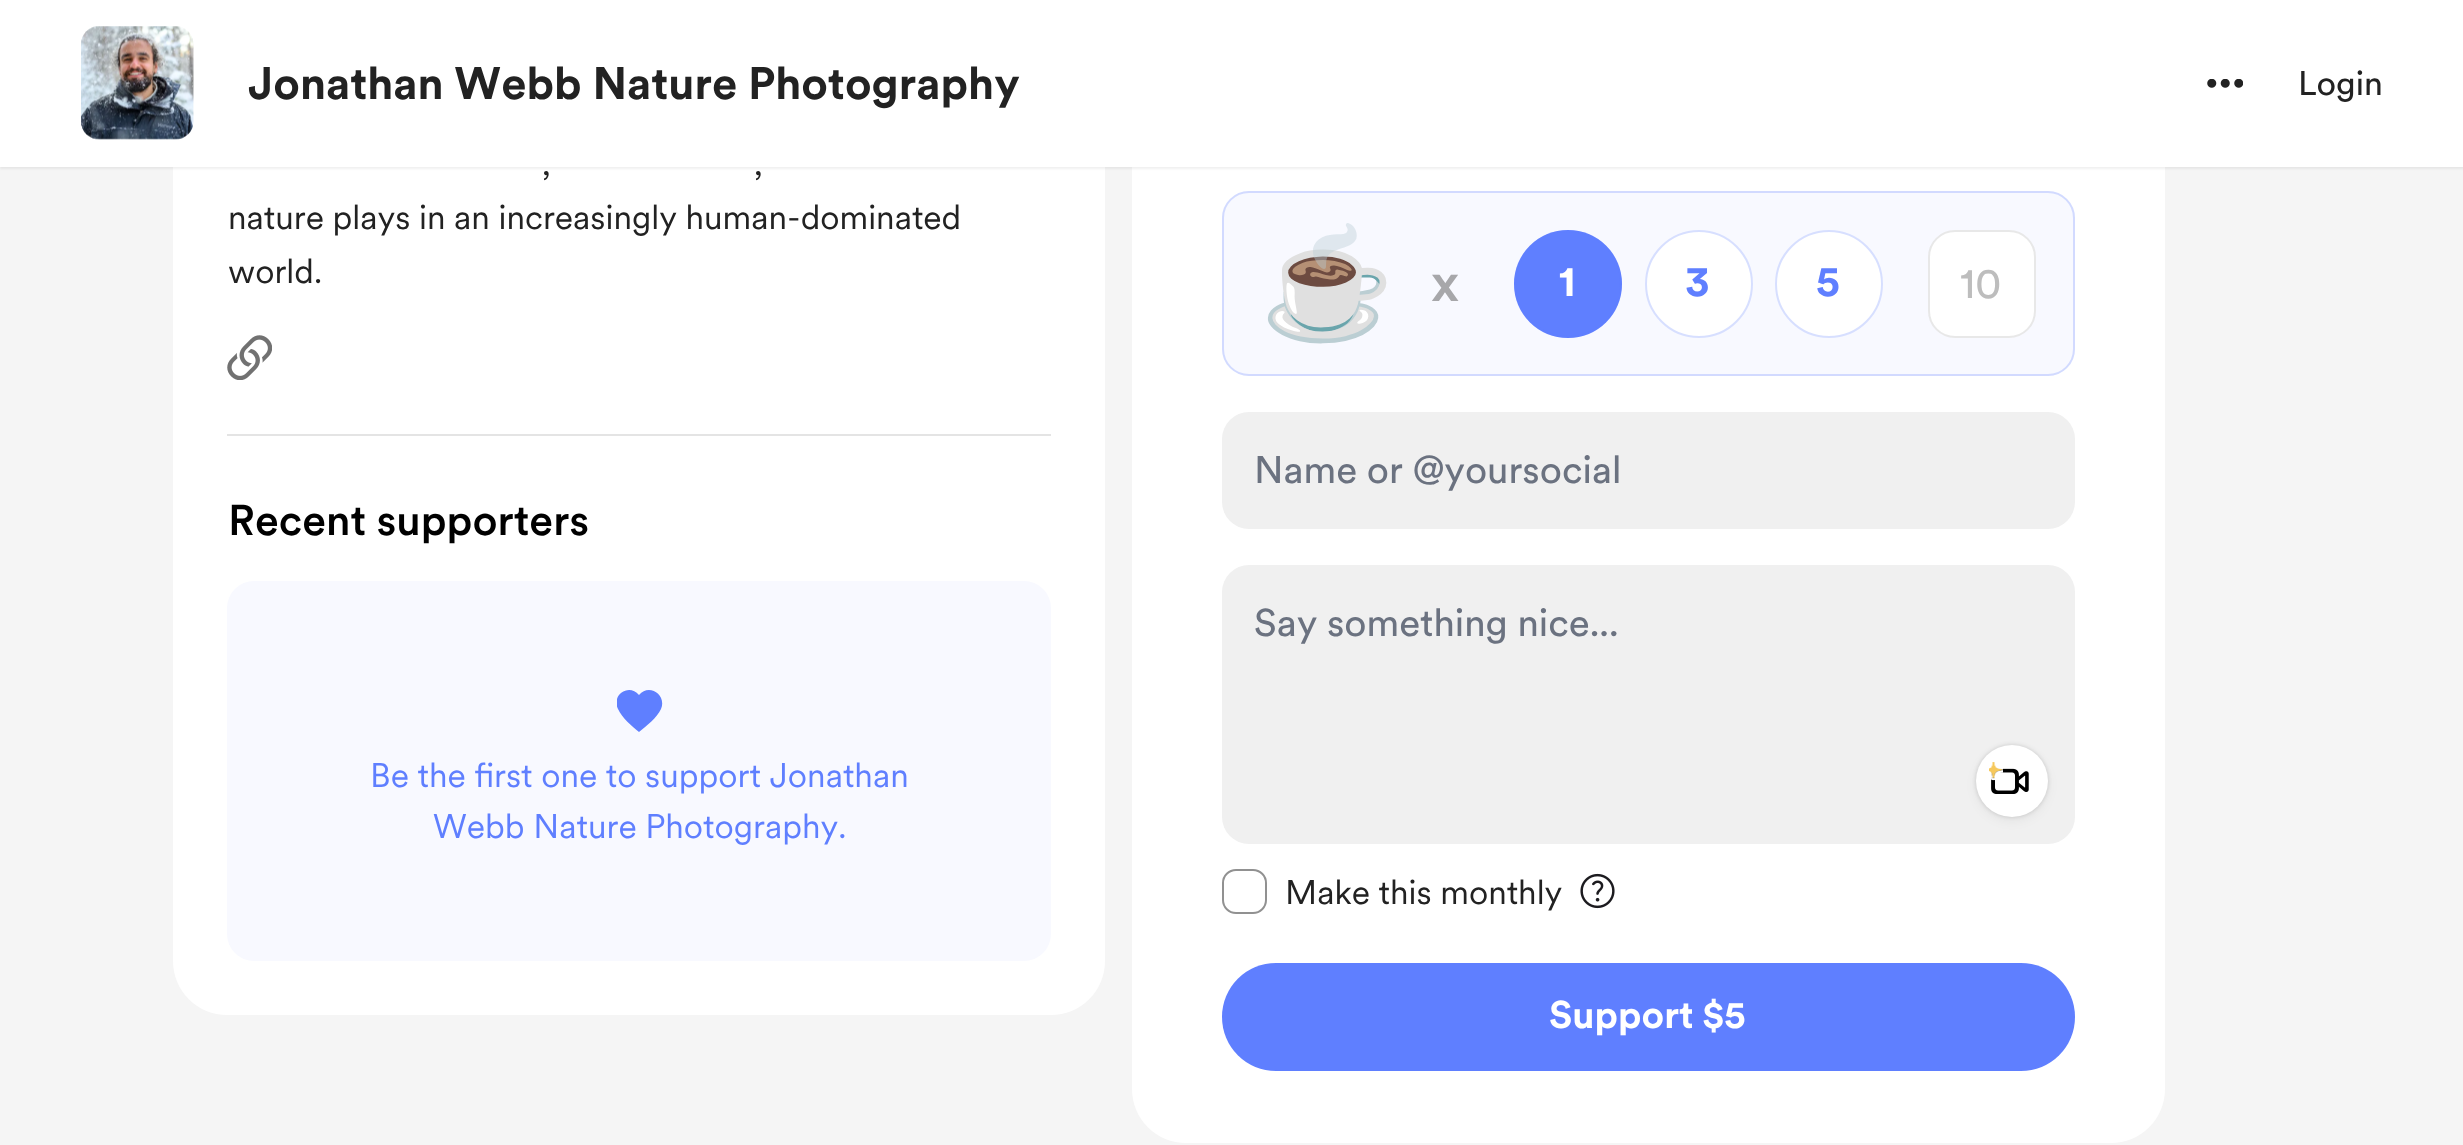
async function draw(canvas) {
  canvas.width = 2463;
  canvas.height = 1145;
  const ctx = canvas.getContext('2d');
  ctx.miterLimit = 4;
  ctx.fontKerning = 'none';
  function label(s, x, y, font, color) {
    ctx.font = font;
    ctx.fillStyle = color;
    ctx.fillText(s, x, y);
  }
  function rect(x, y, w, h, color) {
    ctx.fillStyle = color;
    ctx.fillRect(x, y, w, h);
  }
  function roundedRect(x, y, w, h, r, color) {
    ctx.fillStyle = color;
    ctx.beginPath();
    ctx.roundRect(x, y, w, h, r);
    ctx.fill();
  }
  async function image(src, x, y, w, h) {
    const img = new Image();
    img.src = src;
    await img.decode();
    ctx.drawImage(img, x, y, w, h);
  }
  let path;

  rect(0, 0, 2463, 1145, '#f5f5f5');
  roundedRect(173, -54, 932, 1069, 54, '#fff');
  roundedRect(1132, -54, 1033, 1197, 54, '#fff');
  ctx.fillStyle = '#0000000f';
  ctx.filter = 'blur(1px)';
  ctx.beginPath();
  ctx.rect(0, 2, 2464, 167);
  ctx.fill();
  ctx.filter = 'none';
  rect(0, 0, 2463, 167, '#fff');
  await image('assets/img1.png', 81, 26, 113, 114);
  await image('assets/img2.png', 81, 26, 113, 114);
  label('Jonathan Webb Nature Photography', 248, 99, 'bold 45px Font', '#222');
  await image('assets/img3.png', 2207, 79, 36, 9);
  label('Login', 2298, 95, '33.75px Font', '#222');
  rect(227, 434, 824, 2, '#e4e4e4');
  label(',', 542, 175, '33.75px "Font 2"', '#222');
  label(',', 754, 175, '33.75px "Font 2"', '#222');
  label('nature plays in an increasingly human-dominated', 228, 229, '33.75px "Font 2"', '#222');
  label('world.', 228, 283, '33.75px "Font 2"', '#222');
  await image('assets/img4.png', 227, 335, 45, 45);
  label('Recent supporters', 228, 535, '500 42.75px Font', '#000');
  roundedRect(227, 581, 824, 380, 27, '#f8f9ff');
  ctx.save();
  ctx.beginPath();
  ctx.rect(617, 689, 47, 45);
  ctx.clip();
  ctx.fillStyle = '#5f7fff';
  path = new Path2D('M639 732C632 726 622 718 618 709C611 695 629 683 639 695C649 683 667 695 661 709C657 718 646 726 639 732Z');
  ctx.fill(path);
  ctx.restore();
  label('Be the first one to support Jonathan', 370, 787, '33.75px "Font 2"', '#5f7fff');
  label('Webb Nature Photography.', 433, 838, '33.75px "Font 2"', '#5f7fff');
  roundedRect(1222, 191, 853, 185, 27, '#f8f9ff');
  ctx.beginPath();
  ctx.roundRect(1223, 192, 851, 183, 26);
  ctx.strokeStyle = '#5f7fff40';
  ctx.lineWidth = 2;
  ctx.stroke();
  label('☕', 1260, 321, '108px Noto Color Emoji', '#000');
  label('x', 1431, 301, '500 54px Font', '#a7a7aa');
  ctx.fillStyle = '#5f7fff';
  ctx.beginPath();
  ctx.arc(1568, 284, 54, 0, 2 * Math.PI);
  ctx.fill();
  ctx.beginPath();
  ctx.arc(1568, 284, 53, 0, 2 * Math.PI);
  ctx.stroke();
  label('1', 1559, 296, 'bold 42.75px Font', '#fff');
  ctx.beginPath();
  ctx.arc(1699, 284, 54, 0, 2 * Math.PI);
  ctx.fill();
  ctx.beginPath();
  ctx.arc(1699, 284, 53, 0, 2 * Math.PI);
  ctx.stroke();
  label('3', 1685, 296, 'bold 42.75px Font', '#5f7fff');
  ctx.fillStyle = '#fff';
  ctx.beginPath();
  ctx.arc(1829, 284, 54, 0, 2 * Math.PI);
  ctx.fill();
  ctx.beginPath();
  ctx.arc(1829, 284, 53, 0, 2 * Math.PI);
  ctx.stroke();
  label('5', 1816, 296, 'bold 42.75px Font', '#5f7fff');
  roundedRect(1928, 230, 108, 108, 27, '#fff');
  ctx.beginPath();
  ctx.roundRect(1929, 231, 106, 106, 26);
  ctx.strokeStyle = '#2222221a';
  ctx.stroke();
  label('10', 1960, 298, '42.75px Font', '#bdbdbd');
  roundedRect(1222, 412, 853, 117, 27, '#f0f0f0');
  label('Name or @yoursocial', 1254, 483, '38.25px Font', '#6b7280');
  roundedRect(1222, 565, 853, 279, 27, '#f0f0f0');
  label('Say something nice...', 1254, 636, '38.25px Font', '#6b7280');
  ctx.fillStyle = '#0000000d';
  ctx.filter = 'blur(5.5px)';
  ctx.beginPath();
  ctx.roundRect(1976, 749, 72, 72, 36);
  ctx.fill();
  ctx.filter = 'none';
  ctx.fillStyle = '#00000026';
  ctx.filter = 'blur(2px)';
  ctx.beginPath();
  ctx.roundRect(1976, 745, 72, 72, 36);
  ctx.fill();
  ctx.filter = 'none';
  ctx.fillStyle = '#fff';
  ctx.beginPath();
  ctx.arc(2012, 781, 36, 0, 2 * Math.PI);
  ctx.fill();
  await image('assets/img6.png', 1991, 768, 38, 26);
  await image('assets/img5.png', 1989, 762, 14, 19);
  ctx.beginPath();
  ctx.roundRect(1223, 870, 43, 43, 13);
  ctx.strokeStyle = '#919191';
  ctx.stroke();
  label('Make this monthly', 1285, 904, '33.75px "Font 2"', '#222');
  await image('assets/img7.png', 1580, 873, 35, 36);
  roundedRect(1222, 963, 853, 108, 54, '#5f7fff');
  label('Support $5', 1549, 1028, 'bold 38.25px Font', '#fff');
}

draw(document.querySelector('canvas'));
